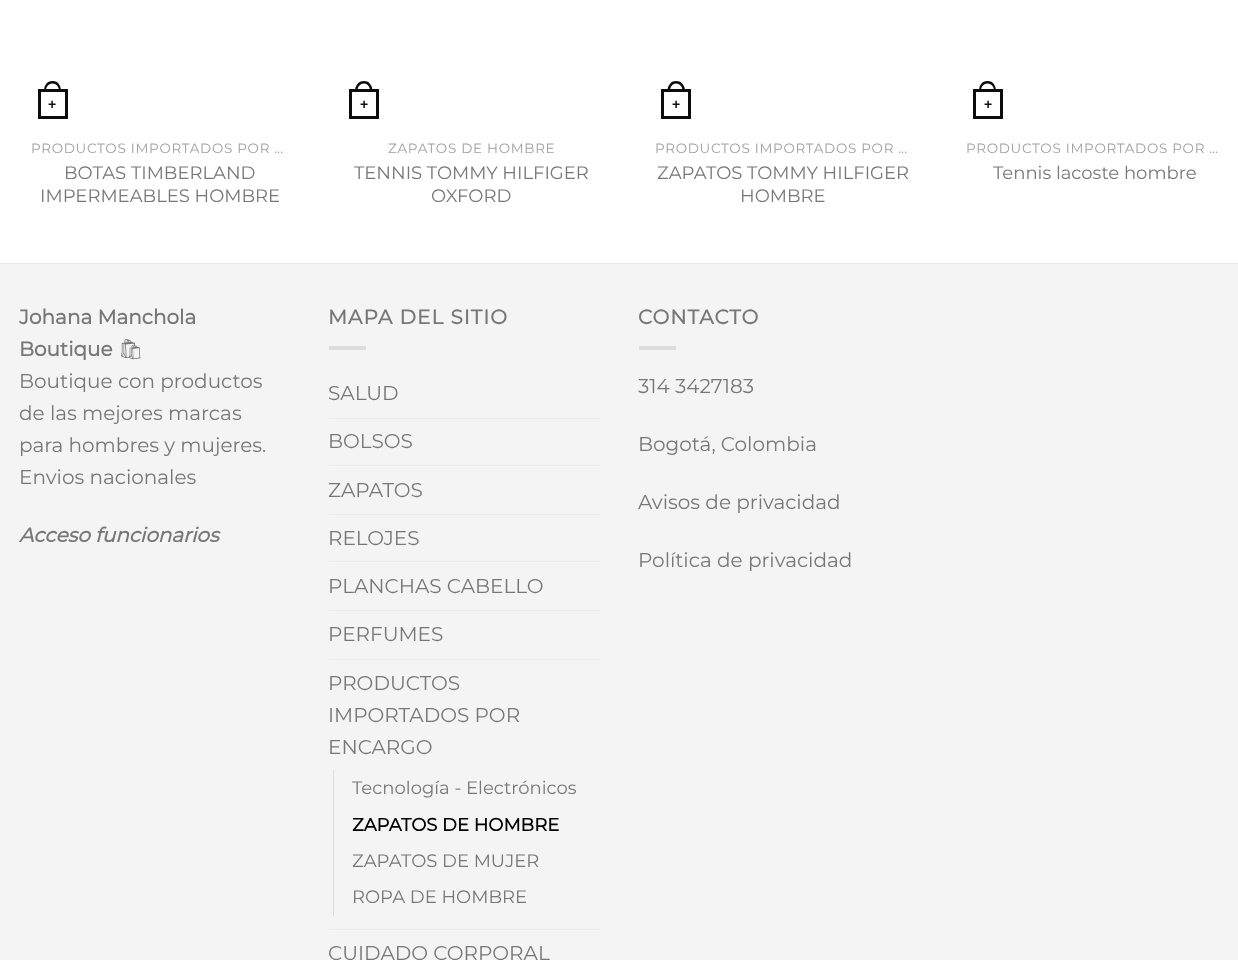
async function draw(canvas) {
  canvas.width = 1238;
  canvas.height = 960;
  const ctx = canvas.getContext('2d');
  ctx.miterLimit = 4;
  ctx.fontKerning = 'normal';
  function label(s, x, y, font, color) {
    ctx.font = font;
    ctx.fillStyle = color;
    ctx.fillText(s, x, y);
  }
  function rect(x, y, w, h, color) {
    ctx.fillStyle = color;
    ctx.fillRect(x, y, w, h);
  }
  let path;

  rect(0, 0, 1238, 960, '#fff');
  ctx.strokeStyle = '#0d0d0d';
  ctx.lineWidth = 3;
  ctx.strokeRect(39.5, 90.5, 27, 27);
  ctx.fillStyle = '#0d0d0d';
  path = new Path2D('M52.5 81C58.5 81 61 86 61 91H44C44 86 46.5 81 52.5 81ZM52.5 83.5C57 83.5 59 87.5 59 91H46C46 87.5 48 83.5 52.5 83.5Z');
  ctx.fill(path, 'evenodd');
  label('+', 48, 109, 'bold 14px Liberation Sans', '#0d0d0d');
  ctx.letterSpacing = '0.7px';
  label('PRODUCTOS IMPORTADOS POR …', 31, 153, '100 13.5px Montserrat', '#a0a0a0');
  ctx.letterSpacing = '0px';
  label('BOTAS TIMBERLAND', 64, 179, '100 18px Montserrat', '#777');
  label('IMPERMEABLES HOMBRE', 40, 202, '100 18px Montserrat', '#777');
  ctx.strokeRect(350.5, 90.5, 27, 27);
  ctx.fillStyle = '#0d0d0d';
  path = new Path2D('M364 81C369.5 81 372.5 86 372.5 91H355C355 86 358 81 364 81ZM364 83.5C368 83.5 370 87.5 370 91H357.5C357.5 87.5 359.5 83.5 364 83.5Z');
  ctx.fill(path, 'evenodd');
  label('+', 360, 109, 'bold 14px Liberation Sans', '#0d0d0d');
  ctx.letterSpacing = '0.7px';
  label('ZAPATOS DE HOMBRE', 388, 153, '100 13.5px Montserrat', '#a0a0a0');
  ctx.letterSpacing = '0px';
  label('TENNIS TOMMY HILFIGER', 354, 179, '100 18px Montserrat', '#777');
  label('OXFORD', 431, 202, '100 18px Montserrat', '#777');
  ctx.strokeRect(662.5, 90.5, 27, 27);
  ctx.fillStyle = '#0d0d0d';
  path = new Path2D('M676 81C682 81 685 86 685 91H667.5C667.5 86 670.5 81 676 81ZM676 83.5C680.5 83.5 682.5 87.5 682.5 91H670C670 87.5 672 83.5 676 83.5Z');
  ctx.fill(path, 'evenodd');
  label('+', 672, 109, 'bold 14px Liberation Sans', '#0d0d0d');
  ctx.letterSpacing = '0.7px';
  label('PRODUCTOS IMPORTADOS POR …', 655, 153, '100 13.5px Montserrat', '#a0a0a0');
  ctx.letterSpacing = '0px';
  label('ZAPATOS TOMMY HILFIGER', 657, 179, '100 18px Montserrat', '#777');
  label('HOMBRE', 740, 202, '100 18px Montserrat', '#777');
  ctx.strokeRect(974.5, 90.5, 27, 27);
  ctx.fillStyle = '#0d0d0d';
  path = new Path2D('M987.5 81C993.5 81 996 86 996 91H979C979 86 981.5 81 987.5 81ZM987.5 83.5C992 83.5 994 87.5 994 91H981C981 87.5 983 83.5 987.5 83.5Z');
  ctx.fill(path, 'evenodd');
  label('+', 984, 109, 'bold 14px Liberation Sans', '#0d0d0d');
  ctx.letterSpacing = '0.7px';
  label('PRODUCTOS IMPORTADOS POR …', 966, 153, '100 13.5px Montserrat', '#a0a0a0');
  ctx.letterSpacing = '0px';
  label('Tennis lacoste hombre', 993, 179, '100 18px Montserrat', '#777');
  rect(0, 264, 1238, 696, '#f4f4f4');
  rect(0, 263, 1238, 1, '#e8e8e8');
  label('Johana Manchola', 19, 324, 'bold 20px Montserrat', '#777');
  label('Boutique', 19, 356, 'bold 20px Montserrat', '#777');
  label('🛍', 118, 356, '20px Noto Emoji', '#777');
  label('Boutique con productos', 19, 388, '100 20px Montserrat', '#777');
  label('de las mejores marcas', 19, 420, '100 20px Montserrat', '#777');
  label('para hombres y mujeres.', 19, 452, '100 20px Montserrat', '#777');
  label('Envios nacionales', 19, 484, '100 20px Montserrat', '#777');
  label('Acceso funcionarios', 19, 542, 'italic bold 20px Montserrat', '#777');
  ctx.letterSpacing = '1px';
  label('MAPA DEL SITIO', 328, 324, 'bold 20px Montserrat', '#777');
  rect(329, 346, 37, 4, '#dcdcdc');
  ctx.letterSpacing = '0px';
  label('SALUD', 328, 400, '100 20px Montserrat', '#777');
  rect(329, 418, 272, 1, '#ececec');
  label('BOLSOS', 328, 448, '100 20px Montserrat', '#777');
  rect(329, 465, 272, 1, '#ececec');
  label('ZAPATOS', 328, 497, '100 20px Montserrat', '#777');
  rect(329, 514, 272, 1, '#ececec');
  label('RELOJES', 328, 545, '100 20px Montserrat', '#777');
  rect(329, 561, 272, 1, '#ececec');
  label('PLANCHAS CABELLO', 328, 593, '100 20px Montserrat', '#777');
  rect(329, 610, 272, 1, '#ececec');
  label('PERFUMES', 328, 641, '100 20px Montserrat', '#777');
  rect(329, 659, 272, 1, '#ececec');
  label('PRODUCTOS', 328, 690, '100 20px Montserrat', '#777');
  label('IMPORTADOS POR', 328, 722, '100 20px Montserrat', '#777');
  label('ENCARGO', 328, 754, '100 20px Montserrat', '#777');
  rect(333, 770, 1, 146, '#ddd');
  label('Tecnología - Electrónicos', 352, 794, '100 18px Montserrat', '#777');
  label('ZAPATOS DE HOMBRE', 352, 831, 'bold 18px Montserrat', '#000');
  label('ZAPATOS DE MUJER', 352, 867, '100 18px Montserrat', '#777');
  label('ROPA DE HOMBRE', 352, 903, '100 18px Montserrat', '#777');
  rect(329, 929, 272, 1, '#ececec');
  label('CUIDADO CORPORAL', 328, 960, '100 20px Montserrat', '#777');
  ctx.letterSpacing = '1px';
  label('CONTACTO', 638, 324, 'bold 20px Montserrat', '#777');
  rect(639, 346, 37, 4, '#dcdcdc');
  ctx.letterSpacing = '0px';
  label('314 3427183', 638, 393, '100 20px Montserrat', '#777');
  label('Bogotá, Colombia', 638, 451, '100 20px Montserrat', '#777');
  label('Avisos de privacidad', 638, 509, '100 20px Montserrat', '#777');
  label('Política de privacidad', 638, 567, '100 20px Montserrat', '#777');
}

draw(document.querySelector('canvas'));
